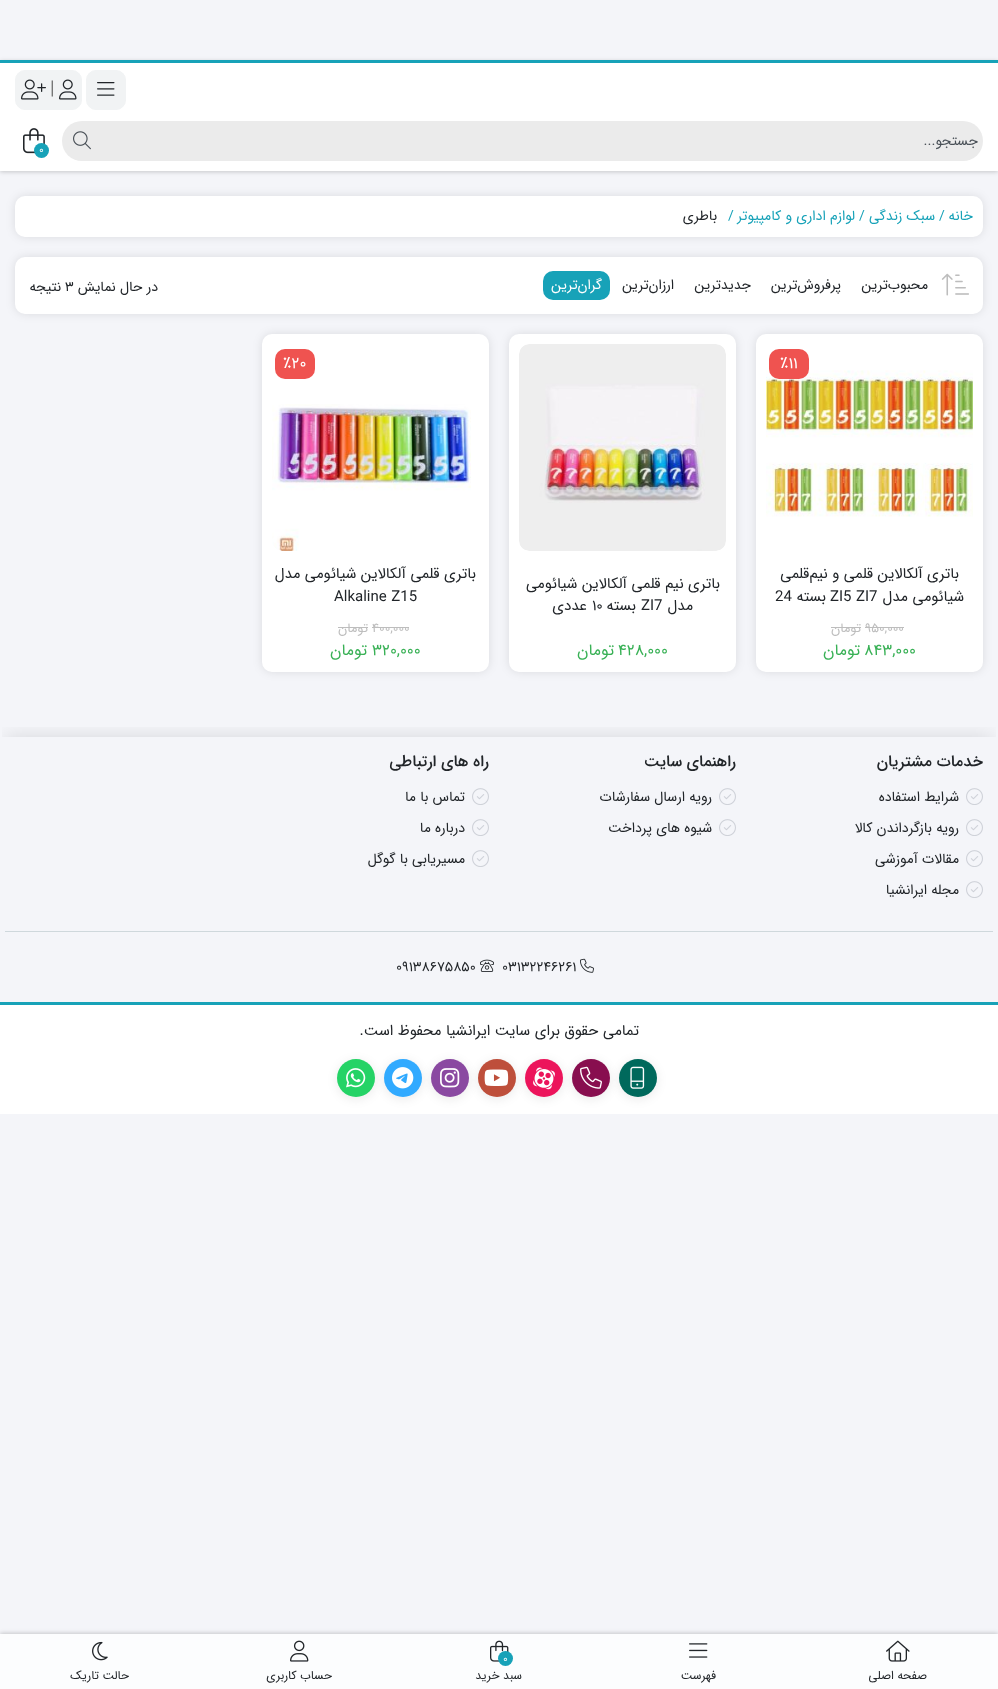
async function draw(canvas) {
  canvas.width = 998;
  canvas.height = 1689;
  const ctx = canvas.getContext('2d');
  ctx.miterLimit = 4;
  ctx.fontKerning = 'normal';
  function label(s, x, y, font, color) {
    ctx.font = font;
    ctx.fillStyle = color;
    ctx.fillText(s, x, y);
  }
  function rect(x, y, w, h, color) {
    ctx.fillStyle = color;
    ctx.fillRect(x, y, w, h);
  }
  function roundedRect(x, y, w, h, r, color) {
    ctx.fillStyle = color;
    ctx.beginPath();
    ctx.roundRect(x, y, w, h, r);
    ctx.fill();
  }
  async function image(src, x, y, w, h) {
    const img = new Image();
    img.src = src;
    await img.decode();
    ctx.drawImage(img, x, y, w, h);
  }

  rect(0, 0, 998, 1689, '#f4f5f9');
  ctx.fillStyle = '#00000030';
  ctx.filter = 'blur(2px)';
  ctx.beginPath();
  ctx.rect(0, 61, 998, 111);
  ctx.fill();
  ctx.filter = 'none';
  rect(0, 63, 998, 108, '#fff');
  rect(0, 60, 998, 3, '#17a2b8');
  ctx.fillStyle = '#f1f3f4';
  ctx.beginPath();
  ctx.roundRect(86.5, 70.5, 39, 39, 9.5);
  ctx.fill();
  ctx.strokeStyle = '#f1f3f4';
  ctx.stroke();
  await image('assets/img1.png', 97, 82, 18, 14);
  ctx.beginPath();
  ctx.roundRect(15.5, 70.5, 66, 39, 9.5);
  ctx.fill();
  ctx.stroke();
  await image('assets/img2.png', 59, 79, 18, 21);
  label('|', 50, 94, '19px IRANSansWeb', '#777');
  await image('assets/img3.png', 21, 79, 25, 21);
  ctx.fillStyle = '#ebebeb';
  ctx.beginPath();
  ctx.roundRect(97, 121, 886, 40, [0, 20, 20, 0]);
  ctx.fill();
  ctx.direction = 'rtl';
  label('جستجو...', 978, 145, '14px IRANSansWeb', '#495057');
  ctx.fillStyle = '#ebebeb';
  ctx.beginPath();
  ctx.roundRect(62, 121, 35, 40, [20, 0, 0, 20]);
  ctx.fill();
  await image('assets/img4.png', 73, 131, 18, 19);
  await image('assets/img5.png', 23, 128, 22, 26);
  ctx.fillStyle = '#17a2b8';
  ctx.beginPath();
  ctx.arc(41.5, 150.5, 7.5, 0, 2 * Math.PI);
  ctx.fill();
  ctx.direction = 'ltr';
  label('0', 39, 153, '11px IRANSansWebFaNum', '#fff');
  ctx.fillStyle = '#0000001a';
  ctx.filter = 'blur(5px)';
  ctx.beginPath();
  ctx.roundRect(15, 196, 968, 41, 10);
  ctx.fill();
  ctx.filter = 'none';
  roundedRect(15, 196, 968, 41, 10, '#fff');
  ctx.direction = 'rtl';
  label('خانه', 973, 220, '14px IRANSansWeb', '#17a2b8');
  ctx.direction = 'ltr';
  label('/', 939, 220, '14px IRANSansWeb', '#17a2b8');
  ctx.direction = 'rtl';
  label('سبک زندگی', 935, 220, '14px IRANSansWeb', '#17a2b8');
  ctx.direction = 'ltr';
  label('/', 859, 220, '14px IRANSansWeb', '#17a2b8');
  ctx.direction = 'rtl';
  label('لوازم اداری و کامپیوتر', 855, 220, '14px IRANSansWeb', '#17a2b8');
  ctx.direction = 'ltr';
  label('/', 728, 220, '14px IRANSansWeb', '#17a2b8');
  ctx.direction = 'rtl';
  label('باطری', 717, 220, '14px IRANSansWeb', '#212529');
  ctx.fillStyle = '#0000001a';
  ctx.filter = 'blur(5px)';
  ctx.beginPath();
  ctx.roundRect(15, 257, 968, 57, 10);
  ctx.fill();
  ctx.filter = 'none';
  roundedRect(15, 257, 968, 57, 10, '#fff');
  await image('assets/img6.png', 941, 273, 28, 23);
  label('محبوب‌ترین', 928, 289, '14px IRANSansWeb', '#212529');
  label('پرفروش‌ترین', 841, 289, '14px IRANSansWeb', '#212529');
  label('جدیدترین', 751, 289, '14px IRANSansWeb', '#212529');
  label('ارزان‌ترین', 674, 289, '14px IRANSansWeb', '#212529');
  roundedRect(543, 271, 67, 29, 10, '#17a2b8');
  label('گران‌ترین', 602, 289, '14px IRANSansWeb', '#fff');
  label('در حال نمایش', 158, 291, '14px IRANSansWebFaNum', '#212529');
  ctx.direction = 'ltr';
  label('3', 65, 291, '14px IRANSansWebFaNum', '#212529');
  ctx.direction = 'rtl';
  label('نتیجه', 61, 291, '14px IRANSansWebFaNum', '#212529');
  ctx.fillStyle = '#0000001a';
  ctx.filter = 'blur(5px)';
  ctx.beginPath();
  ctx.roundRect(756, 334, 227, 338, 10);
  ctx.fill();
  ctx.filter = 'none';
  roundedRect(756, 334, 227, 338, 10, '#fff');
  await image('assets/img7.png', 766, 370, 207, 147);
  roundedRect(769, 349, 40, 30, 10, '#ef5350');
  ctx.direction = 'ltr';
  label('٪11', 780, 368, '16px IRANSansWebFaNum', '#fff');
  ctx.direction = 'rtl';
  label('باتری آلکالاین قلمی و نیم‌قلمی', 959, 578, '15px IRANSansWeb', '#212529');
  label('شیائومی مدل', 964, 601, '15px IRANSansWeb', '#212529');
  ctx.direction = 'ltr';
  label('ZI5 ZI7', 830, 601, '15px IRANSansWeb', '#212529');
  ctx.direction = 'rtl';
  label('بسته', 826, 601, '15px IRANSansWeb', '#212529');
  ctx.direction = 'ltr';
  label('24', 775, 601, '15px IRANSansWeb', '#212529');
  label('۹۵۰,۰۰۰', 865, 632, '13px IRANSansWebFaNum', '#bdbdbd');
  rect(865, 627, 39, 1, '#bdbdbd');
  ctx.direction = 'rtl';
  label('تومان', 861, 632, '13px IRANSansWebFaNum', '#bdbdbd');
  rect(831, 627, 30, 1, '#bdbdbd');
  ctx.direction = 'ltr';
  label('۸۴۳,۰۰۰', 864, 655, '16px IRANSansWebFaNum', '#39b156');
  ctx.direction = 'rtl';
  label('تومان', 860, 655, '16px IRANSansWebFaNum', '#39b156');
  ctx.fillStyle = '#0000001a';
  ctx.filter = 'blur(5px)';
  ctx.beginPath();
  ctx.roundRect(509, 334, 227, 338, 10);
  ctx.fill();
  ctx.filter = 'none';
  roundedRect(509, 334, 227, 338, 10, '#fff');
  await image('assets/img8.png', 519, 344, 207, 207);
  label('باتری نیم قلمی آلکالاین شیائومی', 720, 588, '15px IRANSansWeb', '#212529');
  label('مدل', 693, 610, '15px IRANSansWeb', '#212529');
  ctx.direction = 'ltr';
  label('ZI7', 641, 610, '15px IRANSansWeb', '#212529');
  ctx.direction = 'rtl';
  label('بسته', 636, 610, '15px IRANSansWeb', '#212529');
  ctx.direction = 'ltr';
  label('۱۰', 592, 610, '15px IRANSansWeb', '#212529');
  ctx.direction = 'rtl';
  label('عددی', 587, 610, '15px IRANSansWeb', '#212529');
  ctx.direction = 'ltr';
  label('۴۲۸,۰۰۰', 618, 655, '16px IRANSansWebFaNum', '#39b156');
  ctx.direction = 'rtl';
  label('تومان', 614, 655, '16px IRANSansWebFaNum', '#39b156');
  ctx.fillStyle = '#0000001a';
  ctx.filter = 'blur(5px)';
  ctx.beginPath();
  ctx.roundRect(262, 334, 227, 338, 10);
  ctx.fill();
  ctx.filter = 'none';
  roundedRect(262, 334, 227, 338, 10, '#fff');
  roundedRect(275, 349, 40, 30, 10, '#ef5350');
  ctx.direction = 'ltr';
  label('٪20', 283, 368, '16px IRANSansWebFaNum', '#fff');
  await image('assets/img9.png', 272, 404, 199, 147);
  ctx.direction = 'rtl';
  label('باتری قلمی آلکالاین شیائومی مدل', 476, 578, '15px IRANSansWeb', '#212529');
  ctx.direction = 'ltr';
  label('Alkaline Z15', 334, 601, '15px IRANSansWeb', '#212529');
  label('۴۰۰,۰۰۰', 372, 632, '13px IRANSansWebFaNum', '#bdbdbd');
  rect(372, 627, 37, 1, '#bdbdbd');
  ctx.direction = 'rtl';
  label('تومان', 368, 632, '13px IRANSansWebFaNum', '#bdbdbd');
  rect(338, 627, 30, 1, '#bdbdbd');
  ctx.direction = 'ltr';
  label('۳۲۰,۰۰۰', 372, 655, '16px IRANSansWebFaNum', '#39b156');
  ctx.direction = 'rtl';
  label('تومان', 367, 655, '16px IRANSansWebFaNum', '#39b156');
  ctx.save();
  ctx.beginPath();
  ctx.rect(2, 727, 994, 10);
  ctx.clip();
  ctx.fillStyle = '#0000001f';
  ctx.filter = 'blur(10px)';
  ctx.beginPath();
  ctx.rect(6, 737, 986, 253);
  ctx.fill();
  ctx.filter = 'none';
  ctx.restore();
  rect(5, 931, 988, 1, '#cfd8dc');
  label('خدمات مشتریان', 983, 766, '500 16px IRANSansWeb', '#212529');
  await image('assets/img10.png', 966, 788, 17, 17);
  label('شرایط استفاده', 959, 801, '14px IRANSansWeb', '#212529');
  await image('assets/img10.png', 966, 819, 17, 17);
  label('رویه بازگرداندن کالا', 959, 832, '14px IRANSansWeb', '#212529');
  await image('assets/img10.png', 966, 850, 17, 17);
  label('مقالات آموزشی', 959, 863, '14px IRANSansWeb', '#212529');
  await image('assets/img10.png', 966, 881, 17, 17);
  label('مجله ایرانشیا', 959, 894, '14px IRANSansWeb', '#212529');
  label('راهنمای سایت', 736, 766, '500 16px IRANSansWeb', '#212529');
  await image('assets/img10.png', 719, 788, 17, 17);
  label('رویه ارسال سفارشات', 712, 801, '14px IRANSansWeb', '#212529');
  await image('assets/img10.png', 719, 819, 17, 17);
  label('شیوه های پرداخت', 712, 832, '14px IRANSansWeb', '#212529');
  label('راه های ارتباطی', 489, 766, '500 16px IRANSansWeb', '#212529');
  await image('assets/img10.png', 472, 788, 17, 17);
  label('تماس با ما', 465, 801, '14px IRANSansWeb', '#212529');
  await image('assets/img10.png', 472, 819, 17, 17);
  label('درباره ما', 465, 832, '14px IRANSansWeb', '#212529');
  await image('assets/img10.png', 472, 850, 17, 17);
  label('مسیریابی با گوگل', 465, 863, '14px IRANSansWeb', '#212529');
  await image('assets/img11.png', 580, 958, 14, 15);
  ctx.direction = 'ltr';
  label('03132246261', 502, 971, '14px IRANSansWebFaNum', '#212529');
  await image('assets/img12.png', 480, 959, 14, 13);
  label('09138675850', 396, 971, '14px IRANSansWebFaNum', '#212529');
  rect(0, 1005, 998, 109, '#fff');
  rect(0, 1002, 998, 3, '#17a2b8');
  ctx.direction = 'rtl';
  label('تمامی حقوق برای سایت ایرانشیا محفوظ است.', 639, 1035, '15px IRANSansWeb', '#212529');
  ctx.fillStyle = '#00000012';
  ctx.filter = 'blur(5px)';
  ctx.beginPath();
  ctx.roundRect(336, 1060, 40, 40, 20);
  ctx.fill();
  ctx.filter = 'none';
  ctx.fillStyle = '#25d366';
  ctx.beginPath();
  ctx.arc(356, 1078, 19, 0, 2 * Math.PI);
  ctx.fill();
  ctx.fillStyle = '#00000012';
  ctx.filter = 'blur(5px)';
  ctx.beginPath();
  ctx.roundRect(383, 1060, 40, 40, 20);
  ctx.fill();
  ctx.filter = 'none';
  ctx.fillStyle = '#31aaff';
  ctx.beginPath();
  ctx.arc(403, 1078, 19, 0, 2 * Math.PI);
  ctx.fill();
  ctx.fillStyle = '#00000012';
  ctx.filter = 'blur(5px)';
  ctx.beginPath();
  ctx.roundRect(430, 1060, 40, 40, 20);
  ctx.fill();
  ctx.filter = 'none';
  ctx.fillStyle = '#8a49a1';
  ctx.beginPath();
  ctx.arc(450, 1078, 19, 0, 2 * Math.PI);
  ctx.fill();
  ctx.fillStyle = '#00000012';
  ctx.filter = 'blur(5px)';
  ctx.beginPath();
  ctx.roundRect(477, 1060, 40, 40, 20);
  ctx.fill();
  ctx.filter = 'none';
  ctx.fillStyle = '#be4f3b';
  ctx.beginPath();
  ctx.arc(497, 1078, 19, 0, 2 * Math.PI);
  ctx.fill();
  await image('assets/img16.png', 484, 1069, 25, 17);
  ctx.fillStyle = '#00000012';
  ctx.filter = 'blur(5px)';
  ctx.beginPath();
  ctx.roundRect(524, 1060, 40, 40, 20);
  ctx.fill();
  ctx.filter = 'none';
  ctx.fillStyle = '#ec145b';
  ctx.beginPath();
  ctx.arc(544, 1078, 19, 0, 2 * Math.PI);
  ctx.fill();
  ctx.fillStyle = '#00000012';
  ctx.filter = 'blur(5px)';
  ctx.beginPath();
  ctx.roundRect(571, 1060, 40, 40, 20);
  ctx.fill();
  ctx.filter = 'none';
  ctx.fillStyle = '#880e4f';
  ctx.beginPath();
  ctx.arc(591, 1078, 19, 0, 2 * Math.PI);
  ctx.fill();
  ctx.fillStyle = '#00000012';
  ctx.filter = 'blur(5px)';
  ctx.beginPath();
  ctx.roundRect(618, 1060, 40, 40, 20);
  ctx.fill();
  ctx.filter = 'none';
  ctx.fillStyle = '#00695c';
  ctx.beginPath();
  ctx.arc(638, 1078, 19, 0, 2 * Math.PI);
  ctx.fill();
  await image('assets/img13.png', 630, 1066, 15, 23);
  await image('assets/img14.png', 580, 1066, 22, 23);
  await image('assets/img15.png', 533, 1067, 22, 23);
  await image('assets/img17.png', 440, 1068, 20, 20);
  await image('assets/img18.png', 392, 1067, 22, 22);
  await image('assets/img19.png', 346, 1068, 20, 20);
  ctx.fillStyle = '#00000030';
  ctx.filter = 'blur(2px)';
  ctx.beginPath();
  ctx.rect(0, 1633, 998, 55);
  ctx.fill();
  ctx.filter = 'none';
  rect(0, 1634, 998, 55, '#fcfdfe');
  await image('assets/img20.png', 886, 1640, 24, 22);
  label('صفحه اصلی', 927, 1679, '12px IRANSansWeb', '#212529');
  await image('assets/img21.png', 689, 1643, 19, 15);
  label('فهرست', 716, 1679, '12px IRANSansWeb', '#212529');
  await image('assets/img22.png', 490, 1640, 19, 22);
  ctx.fillStyle = '#17a2b8';
  ctx.beginPath();
  ctx.arc(505.5, 1658.5, 7.5, 0, 2 * Math.PI);
  ctx.fill();
  ctx.direction = 'ltr';
  label('0', 503, 1662, '11px IRANSansWebFaNum', '#fff');
  ctx.direction = 'rtl';
  label('سبد خرید', 522, 1679, '12px IRANSansWeb', '#212529');
  await image('assets/img23.png', 290, 1640, 19, 22);
  label('حساب کاربری', 332, 1679, '12px IRANSansWeb', '#212529');
  await image('assets/img24.png', 92, 1641, 16, 20);
  label('حالت تاریک', 129, 1679, '12px IRANSansWeb', '#212529');
}

draw(document.querySelector('canvas'));
